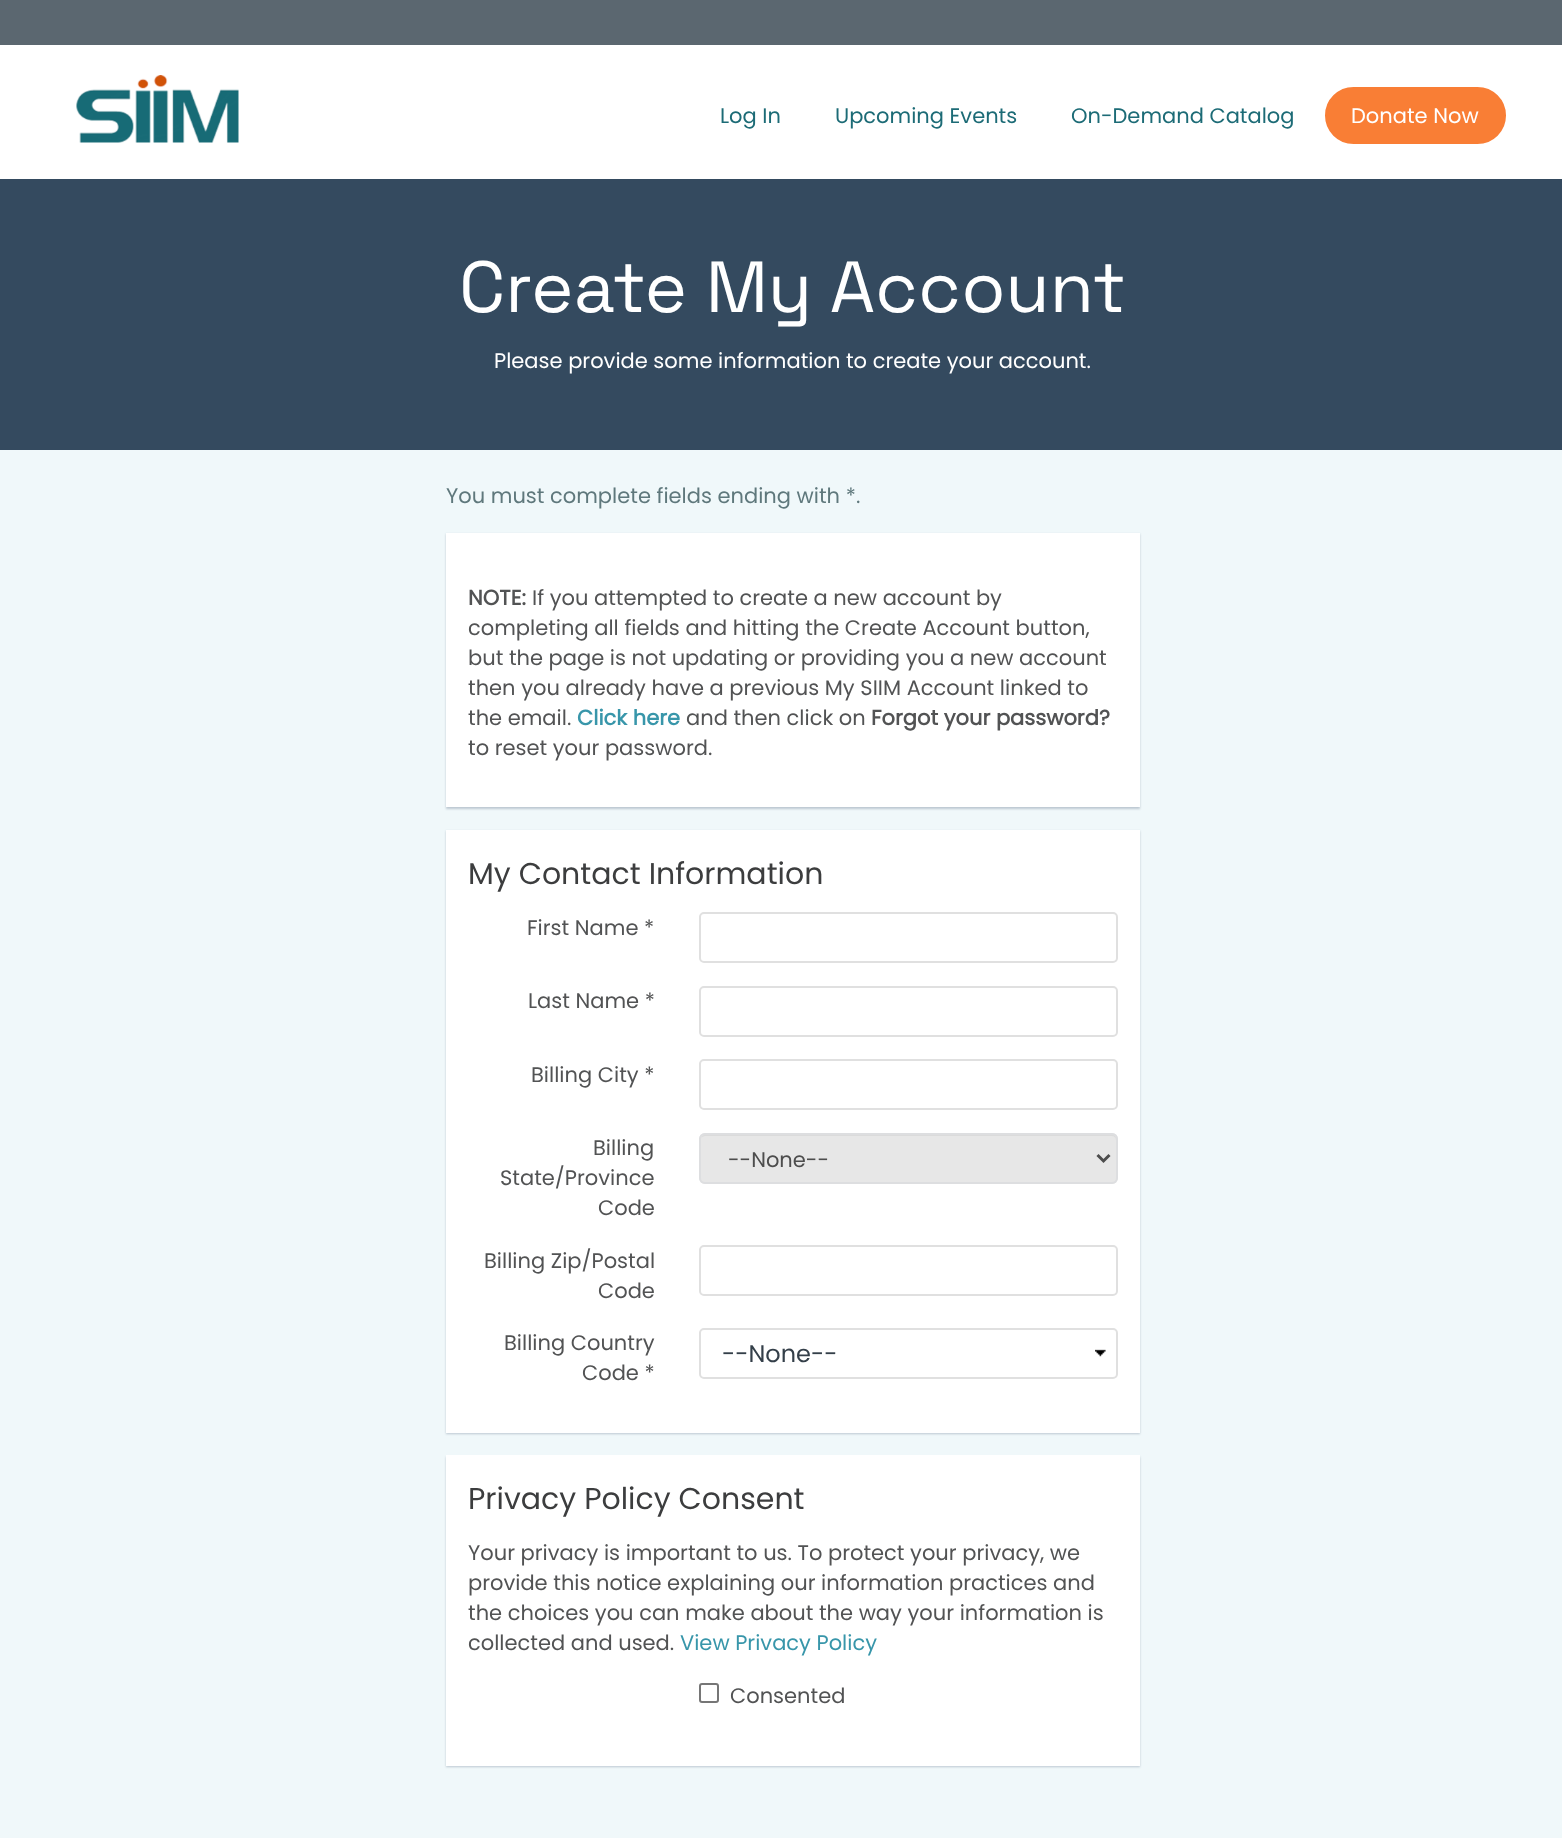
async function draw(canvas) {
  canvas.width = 1562;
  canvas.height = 1838;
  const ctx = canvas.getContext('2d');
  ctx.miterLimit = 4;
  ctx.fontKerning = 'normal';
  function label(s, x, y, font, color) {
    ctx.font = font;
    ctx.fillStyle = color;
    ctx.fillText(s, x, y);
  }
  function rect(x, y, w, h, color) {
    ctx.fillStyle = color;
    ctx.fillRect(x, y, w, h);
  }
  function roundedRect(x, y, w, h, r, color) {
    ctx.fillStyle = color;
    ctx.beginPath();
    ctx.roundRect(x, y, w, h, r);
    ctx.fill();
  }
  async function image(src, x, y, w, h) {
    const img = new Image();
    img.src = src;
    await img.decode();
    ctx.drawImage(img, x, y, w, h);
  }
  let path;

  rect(0, 0, 1562, 1838, '#f0f8fa');
  rect(0, 0, 1562, 45, '#5b6770');
  rect(0, 45, 1562, 134, '#fff');
  await image('assets/img1.png', 76, 75, 163, 68);
  label('Log In', 720, 123, '21px Poppins', '#1c6b76');
  label('Upcoming Events', 835, 123, '21px Poppins', '#1c6b76');
  label('On-Demand Catalog', 1071, 123, '21px Poppins', '#1c6b76');
  ctx.fillStyle = '#f97e35';
  ctx.beginPath();
  ctx.roundRect(1323.5, 85.5, 184, 60, 30);
  ctx.fill();
  ctx.strokeStyle = '#fff';
  ctx.lineWidth = 3;
  ctx.stroke();
  label('Donate Now', 1351, 123, '21px Poppins', '#fff');
  rect(0, 179, 1562, 271, '#344a5f');
  label('Create My Account', 459, 312, '72px Space Grotesk', '#fff');
  label('Please provide some information to create your account.', 494, 368, '21px Poppins', '#fff');
  label('You must complete fields ending with *.', 446, 503, '21px Poppins', '#5f787c');
  ctx.fillStyle = '#25385840';
  ctx.filter = 'blur(1px)';
  ctx.beginPath();
  ctx.rect(446, 534, 694, 275);
  ctx.fill();
  ctx.filter = 'none';
  rect(446, 533, 694, 274, '#fff');
  label('NOTE:', 468, 605, 'bold 21px Poppins', '#525354');
  label('If you attempted to create a new account by', 532, 605, '21px Poppins', '#525354');
  label('completing all fields and hitting the Create Account button,', 468, 635, '21px Poppins', '#525354');
  label('but the page is not updating or providing you a new account', 468, 665, '21px Poppins', '#525354');
  label('then you already have a previous My SIIM Account linked to', 468, 695, '21px Poppins', '#525354');
  label('the email.', 468, 725, '21px Poppins', '#525354');
  label('Click here', 577, 725, 'bold 21px Poppins', '#3896aa');
  label('and then click on', 686, 725, '21px Poppins', '#525354');
  label('Forgot your password?', 871, 725, 'bold 21px Poppins', '#525354');
  label('to reset your password.', 468, 755, '21px Poppins', '#525354');
  ctx.fillStyle = '#25385840';
  ctx.filter = 'blur(1px)';
  ctx.beginPath();
  ctx.rect(446, 831, 694, 603);
  ctx.fill();
  ctx.filter = 'none';
  rect(446, 830, 694, 603, '#fff');
  label('My Contact Information', 468, 884, '30px Poppins', '#3c3d3e');
  label('First Name *', 527, 935, '21px Poppins', '#525354');
  ctx.beginPath();
  ctx.roundRect(700, 913, 417, 49, 4);
  ctx.strokeStyle = '#e0e0e0';
  ctx.lineWidth = 2;
  ctx.stroke();
  label('Last Name *', 528, 1008, '21px Poppins', '#525354');
  ctx.beginPath();
  ctx.roundRect(700, 987, 417, 49, 4);
  ctx.stroke();
  label('Billing City *', 531, 1082, '21px Poppins', '#525354');
  ctx.beginPath();
  ctx.roundRect(700, 1060, 417, 49, 4);
  ctx.stroke();
  label('Billing', 593, 1155, '21px Poppins', '#525354');
  label('State/Province', 500, 1185, '21px Poppins', '#525354');
  label('Code', 598, 1215, '21px Poppins', '#525354');
  roundedRect(699, 1133, 419, 51, 6, '#e7e7e7');
  ctx.fillStyle = '#dbdbdb';
  path = new Path2D('M705 1136H1112C1114 1136 1116 1138 1116 1140V1139C1116 1136 1114 1134 1111 1134H706C704 1134 702 1136 701 1138C702 1137 704 1136 705 1136Z');
  ctx.fill(path);
  ctx.beginPath();
  ctx.roundRect(700, 1134, 417, 49, 5);
  ctx.strokeStyle = '#dddee0';
  ctx.stroke();
  path = new Path2D('M1097.5 1155L1103.5 1161L1109.5 1155');
  ctx.strokeStyle = '#4d4d4d';
  ctx.lineWidth = 3;
  ctx.stroke(path);
  label('--None--', 728, 1167, '21px Poppins', '#4d4d4d');
  label('Billing Zip/Postal', 484, 1268, '21px Poppins', '#525354');
  label('Code', 598, 1298, '21px Poppins', '#525354');
  ctx.beginPath();
  ctx.roundRect(700, 1246, 417, 49, 4);
  ctx.strokeStyle = '#e0e0e0';
  ctx.lineWidth = 2;
  ctx.stroke();
  label('Billing Country', 504, 1350, '21px Poppins', '#525354');
  label('Code *', 582, 1380, '21px Poppins', '#525354');
  await image('assets/img2.png', 1095, 1349, 11, 8);
  ctx.beginPath();
  ctx.roundRect(700, 1329, 417, 49, 4);
  ctx.stroke();
  label('--None--', 722, 1362, '24px Poppins', '#343f49');
  ctx.fillStyle = '#25385840';
  ctx.filter = 'blur(1px)';
  ctx.beginPath();
  ctx.rect(446, 1457, 694, 310);
  ctx.fill();
  ctx.filter = 'none';
  rect(446, 1455, 694, 311, '#fff');
  label('Privacy Policy Consent', 468, 1509, '30px Poppins', '#3c3d3e');
  label('Your privacy is important to us. To protect your privacy, we', 468, 1560, '21px Poppins', '#525354');
  label('provide this notice explaining our information practices and', 468, 1590, '21px Poppins', '#525354');
  label('the choices you can make about the way your information is', 468, 1620, '21px Poppins', '#525354');
  label('collected and used.', 468, 1650, '21px Poppins', '#525354');
  label('View Privacy Policy', 680, 1650, '21px Poppins', '#3896aa');
  ctx.beginPath();
  ctx.roundRect(700, 1684, 18, 18, 2);
  ctx.strokeStyle = '#767676';
  ctx.stroke();
  label('Consented', 730, 1703, '21px Poppins', '#525354');
}

draw(document.querySelector('canvas'));
